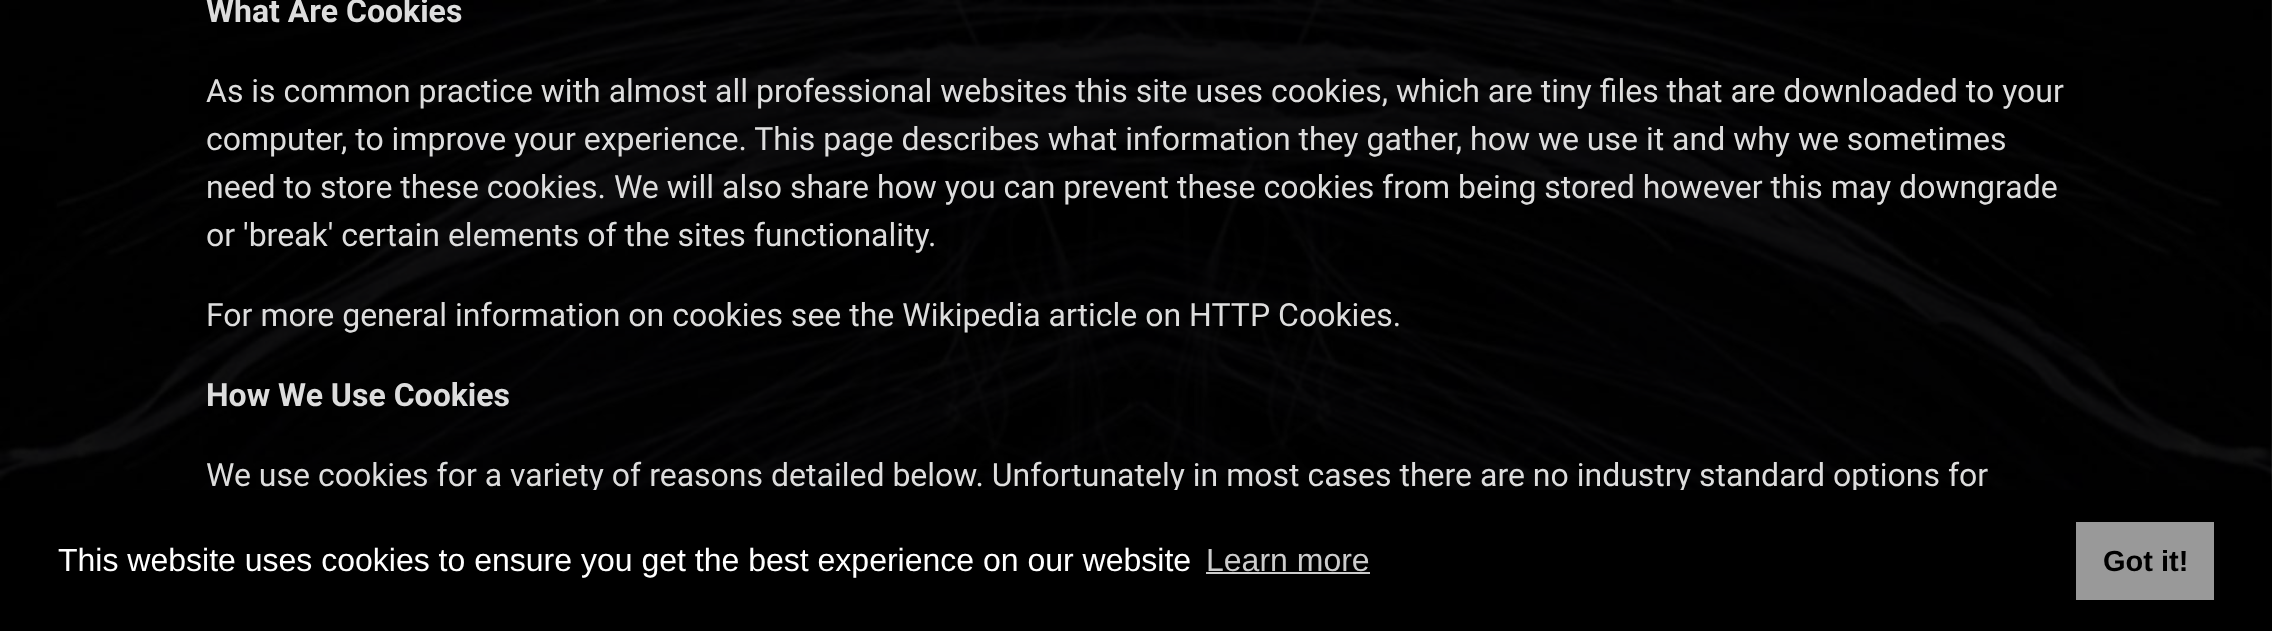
async function draw(canvas) {
  canvas.width = 2272;
  canvas.height = 631;
  const ctx = canvas.getContext('2d');
  ctx.miterLimit = 4;
  ctx.fontKerning = 'normal';
  function label(s, x, y, font, color) {
    ctx.font = font;
    ctx.fillStyle = color;
    ctx.fillText(s, x, y);
  }
  function rect(x, y, w, h, color) {
    ctx.fillStyle = color;
    ctx.fillRect(x, y, w, h);
  }
  async function image(src, x, y, w, h) {
    const img = new Image();
    img.src = src;
    await img.decode();
    ctx.drawImage(img, x, y, w, h);
  }

  rect(0, 0, 2272, 631, '#fff');
  await image('assets/img1.png', 0, 0, 2272, 490);
  label('What Are Cookies', 206, 22, 'bold 32px Roboto', '#ddd');
  label('As is common practice with almost all professional websites this site uses cookies, which are tiny files that are downloaded to your', 206, 102, '32px Roboto', '#ddd');
  label('computer, to improve your experience. This page describes what information they gather, how we use it and why we sometimes', 206, 150, '32px Roboto', '#ddd');
  label('need to store these cookies. We will also share how you can prevent these cookies from being stored however this may downgrade', 206, 198, '32px Roboto', '#ddd');
  label('or \'break\' certain elements of the sites functionality.', 206, 246, '32px Roboto', '#ddd');
  label('For more general information on cookies see the Wikipedia article on HTTP Cookies.', 206, 326, '32px Roboto', '#ddd');
  label('How We Use Cookies', 206, 406, 'bold 32px Roboto', '#ddd');
  label('We use cookies for a variety of reasons detailed below. Unfortunately in most cases there are no industry standard options for', 206, 486, '32px Roboto', '#ddd');
  rect(0, 490, 2272, 141, '#000');
  label('This website uses cookies to ensure you get the best experience on our website', 58, 571, '32px Liberation Sans', '#fff');
  label('Learn more', 1206, 571, '32px Liberation Sans', '#ccc');
  rect(1206, 572, 164, 2, '#ccc');
  rect(2076, 522, 138, 78, '#999');
  label('Got it!', 2103, 571, 'bold 29px Liberation Sans', '#000');
}

draw(document.querySelector('canvas'));
